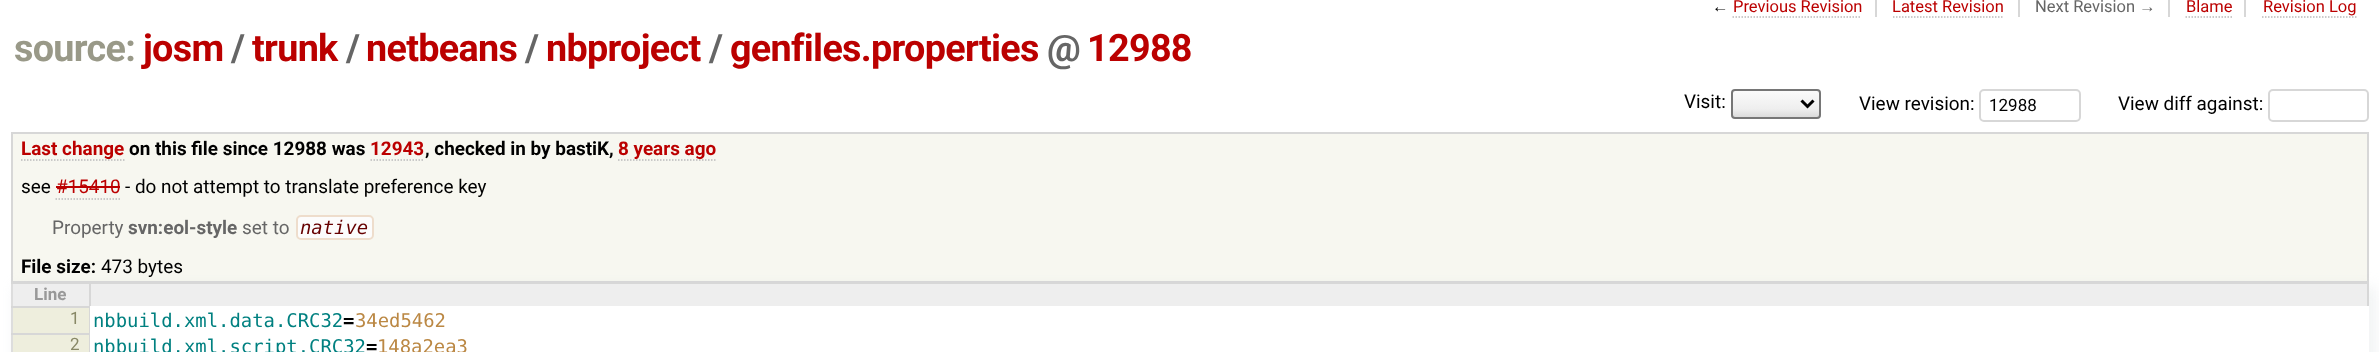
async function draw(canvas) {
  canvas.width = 2379;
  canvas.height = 352;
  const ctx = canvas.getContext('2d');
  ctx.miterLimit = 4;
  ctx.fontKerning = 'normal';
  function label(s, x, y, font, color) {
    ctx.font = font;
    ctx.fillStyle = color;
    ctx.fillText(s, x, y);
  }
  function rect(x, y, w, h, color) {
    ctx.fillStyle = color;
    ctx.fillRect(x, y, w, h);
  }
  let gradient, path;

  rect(0, 0, 2379, 352, '#fff');
  rect(1875, 0, 2, 17, '#d7d7d7');
  label('←', 1712, 12, '16.5px Liberation Sans', '#000');
  path = new Path2D('M1732.5 17H1861.5');
  ctx.strokeStyle = '#bbb';
  ctx.lineWidth = 1.5;
  ctx.setLineDash([1.5, 1.5]);
  ctx.stroke(path);
  label('Previous Revision', 1733, 12, '16.5px Roboto', '#b00');
  rect(2018, 0, 2, 17, '#d7d7d7');
  label('Latest Revision', 1892, 12, '16.5px Roboto', '#b00');
  path = new Path2D('M1893 17H2004');
  ctx.stroke(path);
  rect(2168, 0, 2, 17, '#d7d7d7');
  label('Next Revision', 2035, 12, '16.5px Roboto', '#666');
  label('→', 2139, 12, '16.5px Liberation Sans', '#666');
  rect(2244, 0, 2, 17, '#d7d7d7');
  label('Blame', 2186, 12, '16.5px Roboto', '#b00');
  path = new Path2D('M2185.5 17H2232');
  ctx.stroke(path);
  label('Revision Log', 2263, 12, '16.5px Roboto', '#b00');
  path = new Path2D('M2262 17H2356.5');
  ctx.stroke(path);
  ctx.letterSpacing = '-0.7px';
  label('source:', 14, 61, 'bold 37.75px Roboto', '#998');
  label('josm', 143, 61, 'bold 37.75px Roboto', '#b00');
  label('/', 231, 61, 'bold 37.75px Roboto', '#666');
  label('trunk', 252, 61, 'bold 37.75px Roboto', '#b00');
  label('/', 346, 61, 'bold 37.75px Roboto', '#666');
  label('netbeans', 366, 61, 'bold 37.75px Roboto', '#b00');
  label('/', 525, 61, 'bold 37.75px Roboto', '#666');
  label('nbproject', 546, 61, 'bold 37.75px Roboto', '#b00');
  label('/', 709, 61, 'bold 37.75px Roboto', '#666');
  label('genfiles.properties', 730, 61, 'bold 37.75px Roboto', '#b00');
  label('@', 1047, 61, 'bold 37.75px Roboto', '#666');
  label('12988', 1087, 61, 'bold 37.75px Roboto', '#b00');
  ctx.letterSpacing = '0px';
  label('Visit:', 1684, 108, '18.9px Roboto', '#000');
  ctx.save();
  ctx.beginPath();
  ctx.roundRect(1731, 89, 90, 30, 4);
  ctx.clip();
  gradient = ctx.createLinearGradient(1776, 117, 1776, 90);
  gradient.addColorStop(0, '#dbdbdb');
  gradient.addColorStop(0.3, '#eee');
  gradient.addColorStop(1, '#fbfbfb');
  ctx.fillStyle = gradient;
  ctx.fillRect(1731, 90, 90, 27);
  ctx.restore();
  ctx.beginPath();
  ctx.roundRect(1732, 90, 88, 28, 3);
  ctx.strokeStyle = '#767676';
  ctx.lineWidth = 2;
  ctx.setLineDash([]);
  ctx.stroke();
  path = new Path2D('M1801.5 100.5L1807.5 106.5L1813.5 100.5');
  ctx.strokeStyle = '#000';
  ctx.lineWidth = 3;
  ctx.stroke(path);
  label('View revision:', 1859, 110, '18.9px Roboto', '#000');
  ctx.beginPath();
  ctx.roundRect(1980, 90, 100, 31, 4);
  ctx.strokeStyle = '#d7d7d7';
  ctx.lineWidth = 2;
  ctx.stroke();
  label('12988', 1989, 111, '17px Roboto', '#000');
  label('View diff against:', 2118, 110, '18.9px Roboto', '#000');
  ctx.beginPath();
  ctx.roundRect(2269, 90, 99, 31, 4);
  ctx.stroke();
  rect(13, 134, 2354, 147, '#f7f7f0');
  rect(11, 132, 2358, 2, '#d7d7d7');
  rect(2367, 132, 2, 150, '#d7d7d7');
  rect(11, 281, 2358, 1, '#d7d7d7');
  rect(11, 132, 2, 150, '#d7d7d7');
  label('Last change', 21, 155, 'bold 18.9px Roboto', '#b00');
  path = new Path2D('M21 160H124.5');
  ctx.strokeStyle = '#bbb';
  ctx.lineWidth = 1.5;
  ctx.setLineDash([1.5, 1.5]);
  ctx.stroke(path);
  label('on this file since 12988 was', 129, 155, 'bold 18.9px Roboto', '#000');
  label('12943', 370, 155, 'bold 18.9px Roboto', '#b00');
  path = new Path2D('M370.5 160H424.5');
  ctx.stroke(path);
  label(', checked in by bastiK,', 425, 155, 'bold 18.9px Roboto', '#000');
  label('8 years ago', 618, 155, 'bold 18.9px Roboto', '#b00');
  path = new Path2D('M618 160H717');
  ctx.stroke(path);
  label('see', 21, 193, '18.9px Roboto', '#000');
  label('#15410', 56, 193, '18.9px Roboto', '#b00');
  path = new Path2D('M55.5 199H120');
  ctx.stroke(path);
  rect(56, 186, 64, 2, '#b00');
  label('- do not attempt to translate preference key', 125, 193, '18.9px Roboto', '#000');
  label('Property', 52, 234, '18.9px Roboto', '#666');
  label('svn:eol-style', 128, 234, 'bold 18.9px Roboto', '#666');
  label('set to', 242, 234, '18.9px Roboto', '#666');
  ctx.fillStyle = '#fcfcfc';
  ctx.beginPath();
  ctx.roundRect(297, 216, 76, 23, 4);
  ctx.fill();
  ctx.strokeStyle = '#edc';
  ctx.lineWidth = 2;
  ctx.setLineDash([]);
  ctx.stroke();
  label('native', 300, 234, 'italic 18.9px DejaVu Sans Mono', '#600');
  ctx.fillStyle = '#d2d7dc4d';
  ctx.filter = 'blur(7px)';
  ctx.beginPath();
  ctx.rect(15, 287, 2361, 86);
  ctx.fill();
  ctx.filter = 'none';
  label('File size:', 21, 273, 'bold 18.9px Roboto', '#000');
  label('473 bytes', 101, 273, '18.9px Roboto', '#000');
  rect(11, 282, 2, 70, '#ddd');
  rect(91, 284, 2276, 22, '#eee');
  rect(11, 282, 2358, 2, '#d7d7d7');
  rect(2367, 282, 2, 26, '#d7d7d7');
  rect(13, 284, 76, 22, '#eee');
  rect(89, 306, 1, 46, '#d7d7d7');
  rect(89, 282, 2, 26, '#d7d7d7');
  rect(11, 306, 79, 2, '#d7d7d7');
  label('Line', 34, 300, 'bold 17px Roboto', '#999');
  rect(13, 308, 76, 25, '#eed');
  rect(11, 333, 79, 2, '#d7d7d7');
  label('1', 70, 324, '17px Roboto', '#886');
  rect(90, 306, 2279, 46, '#fff');
  label('nbbuild.xml.data.CRC32', 93, 327, '18.9px DejaVu Sans Mono', '#008080');
  label('=', 343, 327, 'bold 18.9px DejaVu Sans Mono', '#000');
  label('34ed5462', 355, 327, '18.9px DejaVu Sans Mono', '#b84');
  rect(13, 335, 76, 17, '#eed');
  label('2', 70, 350, '17px Roboto', '#886');
  label('nbbuild.xml.script.CRC32', 93, 353, '18.9px DejaVu Sans Mono', '#008080');
  label('=', 366, 353, 'bold 18.9px DejaVu Sans Mono', '#000');
  label('148a2ea3', 377, 353, '18.9px DejaVu Sans Mono', '#b84');
}

draw(document.querySelector('canvas'));
